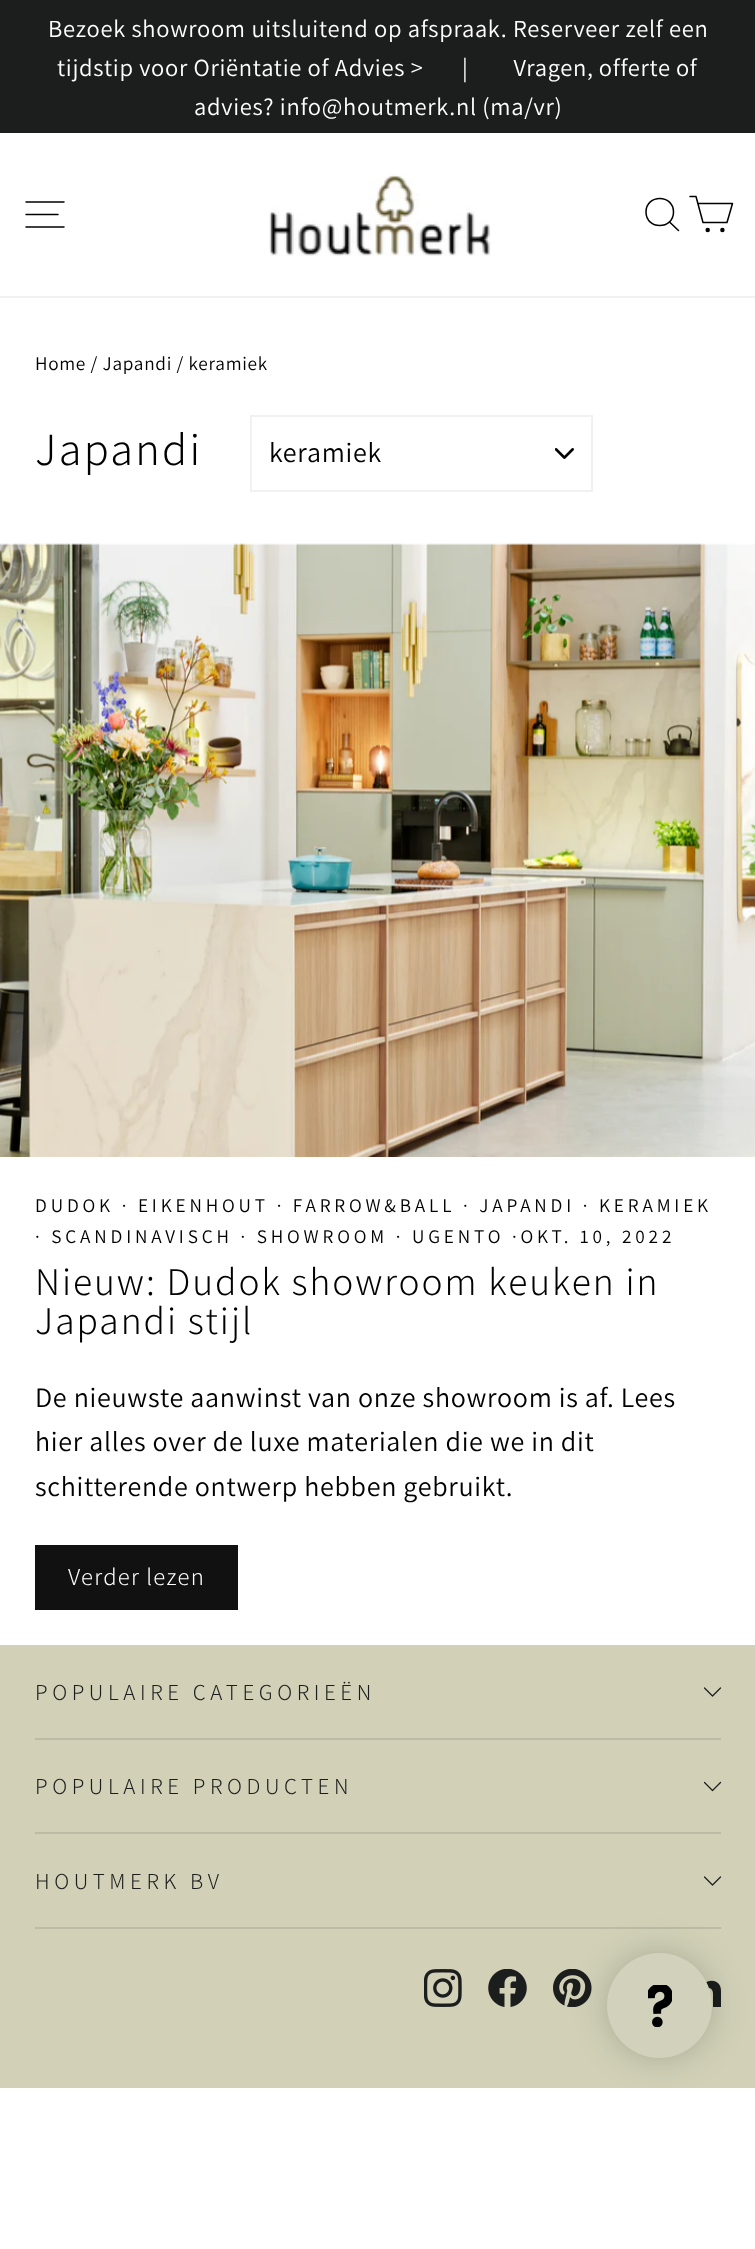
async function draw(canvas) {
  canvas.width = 755;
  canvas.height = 2249;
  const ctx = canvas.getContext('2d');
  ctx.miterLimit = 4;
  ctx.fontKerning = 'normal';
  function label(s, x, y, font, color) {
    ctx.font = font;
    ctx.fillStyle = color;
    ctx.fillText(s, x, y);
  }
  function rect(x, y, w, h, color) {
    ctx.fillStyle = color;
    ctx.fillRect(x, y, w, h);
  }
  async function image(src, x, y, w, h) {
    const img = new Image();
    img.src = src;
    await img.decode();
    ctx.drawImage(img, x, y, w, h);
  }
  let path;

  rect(0, 0, 755, 2249, '#fff');
  rect(0, 0, 755, 133, '#1c1d1d');
  ctx.letterSpacing = '0.7px';
  label('Bezoek showroom uitsluitend op afspraak. Reserveer zelf een', 48, 37, '24.5px Assistant', '#fff');
  label('tijdstip voor Oriëntatie of Advies >', 57, 76, '24.5px Assistant', '#fff');
  label('|', 462, 76, '24.5px Assistant', '#fff');
  ctx.wordSpacing = '-0.5px';
  label(' Vragen, offerte of', 508, 76, '24.5px Assistant', '#fff');
  ctx.wordSpacing = '0px';
  label('advies? info@houtmerk.nl (ma/vr)', 194, 115, '24.5px Assistant', '#fff');
  rect(0, 296, 755, 2, '#f0f1f3');
  path = new Path2D('M26 202H64M26 214.5H58M26 227H64');
  ctx.strokeStyle = '#000';
  ctx.lineWidth = 1.5;
  ctx.lineCap = 'round';
  ctx.lineJoin = 'round';
  ctx.stroke(path);
  await image('assets/img1.png', 269, 174, 222, 82);
  path = new Path2D('M673.5 212C673.5 230 646 230 646 212C646 194 673.5 194 673.5 212ZM678.5 230.5L669.5 222');
  ctx.stroke(path);
  path = new Path2D('M698 203.5H732.5L727 222.5H703L696 196.5H690');
  ctx.stroke(path);
  ctx.fillStyle = '#000';
  ctx.beginPath();
  ctx.arc(707.7, 229.9, 1.5, 0, 2 * Math.PI);
  ctx.fill();
  ctx.stroke();
  ctx.beginPath();
  ctx.arc(722.4, 229.9, 1.5, 0, 2 * Math.PI);
  ctx.fill();
  ctx.stroke();
  label('Home / Japandi / keramiek', 35, 370, '19.25px Assistant', '#000');
  ctx.letterSpacing = '2.25px';
  label('Japandi', 35, 465, '300 46px Assistant', '#000');
  await image('assets/img2.png', 555, 448, 19, 11);
  ctx.strokeStyle = '#f0f1f3';
  ctx.lineWidth = 2;
  ctx.lineJoin = 'miter';
  ctx.strokeRect(251, 416, 341, 75);
  ctx.letterSpacing = '0.7px';
  label('keramiek', 269, 462, '28px Assistant', '#000');
  await image('assets/img3.png', 0, 543, 755, 614);
  ctx.letterSpacing = '3.85px';
  label('DUDOK · EIKENHOUT · FARROW&BALL · JAPANDI · KERAMIEK', 35, 1212, '19.25px Assistant', '#000');
  label('· SCANDINAVISCH · SHOWROOM · UGENTO ·OKT. 10, 2022', 35, 1243, '19.25px Assistant', '#000');
  ctx.letterSpacing = '1.95px';
  label('Nieuw: Dudok showroom keuken in', 35, 1295, '300 39.25px Assistant', '#000');
  label('Japandi stijl', 35, 1334, '300 39.25px Assistant', '#000');
  ctx.letterSpacing = '0.7px';
  label('De nieuwste aanwinst van onze showroom is af. Lees', 35, 1407, '28px Assistant', '#000');
  label('hier alles over de luxe materialen die we in dit', 35, 1451, '28px Assistant', '#000');
  label('schitterende ontwerp hebben gebruikt.', 35, 1496, '28px Assistant', '#000');
  rect(35, 1545, 203, 65, '#111');
  ctx.letterSpacing = '1.25px';
  label('Verder lezen', 68, 1585, '300 24.5px Assistant', '#fff');
  rect(0, 1645, 755, 443, '#d2d1b8');
  ctx.letterSpacing = '4.6px';
  label('POPULAIRE CATEGORIEËN', 35, 1700, '300 22.75px Assistant', '#1c1d1d');
  path = new Path2D('M704.5 1688L712.5 1696L720.5 1688');
  ctx.strokeStyle = '#1c1d1d';
  ctx.lineWidth = 1.2;
  ctx.lineJoin = 'round';
  ctx.stroke(path);
  rect(35, 1738, 686, 2, '#bcbba5');
  label('POPULAIRE PRODUCTEN', 35, 1794, '300 22.75px Assistant', '#1c1d1d');
  path = new Path2D('M704.5 1782.5L712.5 1790.5L720.5 1782.5');
  ctx.stroke(path);
  rect(35, 1832, 686, 2, '#bcbba5');
  label('HOUTMERK BV', 35, 1889, '300 22.75px Assistant', '#1c1d1d');
  path = new Path2D('M704.5 1877L712.5 1885L720.5 1877');
  ctx.stroke(path);
  rect(35, 1927, 686, 2, '#bcbba5');
  await image('assets/img4.png', 424, 1969, 38, 38);
  await image('assets/img5.png', 488, 1969, 39, 38);
  await image('assets/img6.png', 553, 1969, 39, 38);
  await image('assets/img7.png', 706, 1980, 15, 27);
  ctx.fillStyle = '#00000033';
  ctx.filter = 'blur(17.5px)';
  ctx.beginPath();
  ctx.roundRect(607, 1953, 105, 105, 52.5);
  ctx.fill();
  ctx.filter = 'none';
  ctx.fillStyle = '#d2d1bb';
  ctx.beginPath();
  ctx.arc(659.5, 2005.5, 52.5, 0, 2 * Math.PI);
  ctx.fill();
  await image('assets/img8.png', 648, 1985, 24, 42);
}

draw(document.querySelector('canvas'));
